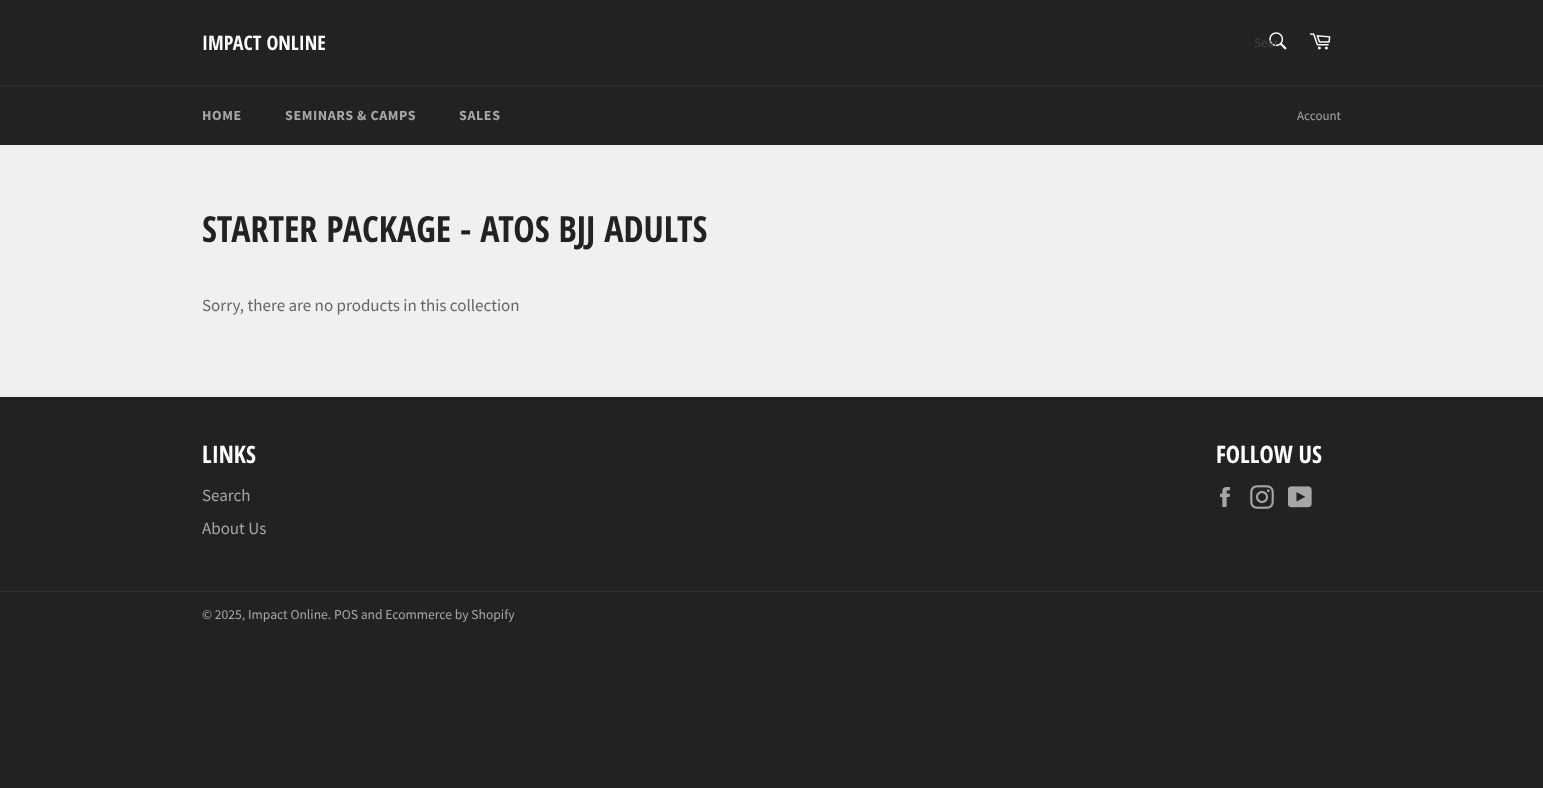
async function draw(canvas) {
  canvas.width = 1543;
  canvas.height = 788;
  const ctx = canvas.getContext('2d');
  ctx.miterLimit = 4;
  ctx.fontKerning = 'normal';
  function label(s, x, y, font, color) {
    ctx.font = font;
    ctx.fillStyle = color;
    ctx.fillText(s, x, y);
  }
  function rect(x, y, w, h, color) {
    ctx.fillStyle = color;
    ctx.fillRect(x, y, w, h);
  }
  async function image(src, x, y, w, h) {
    const img = new Image();
    img.src = src;
    await img.decode();
    ctx.drawImage(img, x, y, w, h);
  }

  rect(0, 0, 1543, 788, '#222');
  rect(0, 145, 1543, 252, '#f0f0f0');
  label('IMPACT ONLINE', 202, 50, 'bold 20px Open Sans Condensed', '#fff');
  await image('assets/img1.png', 1269, 32, 18, 18);
  label('Sear', 1254, 47, '13px Source Sans Pro', '#424242');
  await image('assets/img2.png', 1309, 33, 22, 17);
  rect(0, 85, 1543, 1, '#2f2f2f');
  ctx.letterSpacing = '0.6px';
  label('HOME', 202, 120, 'bold 14px Source Sans Pro', '#a7a7a7');
  label('SEMINARS & CAMPS', 285, 120, 'bold 14px Source Sans Pro', '#a7a7a7');
  label('SALES', 459, 120, 'bold 14px Source Sans Pro', '#a7a7a7');
  ctx.letterSpacing = '0px';
  label('Account', 1297, 120, '13px Source Sans Pro', '#a7a7a7');
  label('STARTER PACKAGE - ATOS BJJ ADULTS', 202, 242, 'bold 36px Open Sans Condensed', '#222');
  label('Sorry, there are no products in this collection', 202, 311, '17px Source Sans Pro', '#666');
  label('LINKS', 202, 463, 'bold 24px Open Sans Condensed', '#fff');
  label('Search', 202, 501, '17px Source Sans Pro', '#a7a7a7');
  label('About Us', 202, 534, '17px Source Sans Pro', '#a7a7a7');
  label('FOLLOW US', 1216, 463, 'bold 24px Open Sans Condensed', '#fff');
  await image('assets/img3.png', 1220, 487, 10, 20);
  await image('assets/img4.png', 1250, 485, 24, 24);
  await image('assets/img5.png', 1288, 486, 24, 22);
  rect(0, 591, 1543, 1, '#2f2f2f');
  label('© 2025, Impact Online. POS and Ecommerce by Shopify', 202, 619, '13.6px Source Sans Pro', '#a7a7a7');
}

draw(document.querySelector('canvas'));
